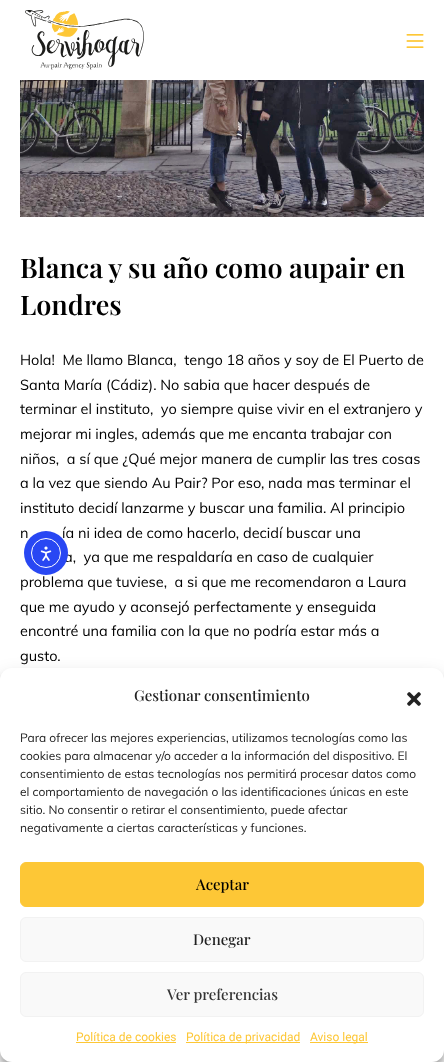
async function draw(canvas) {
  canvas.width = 444;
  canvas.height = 1062;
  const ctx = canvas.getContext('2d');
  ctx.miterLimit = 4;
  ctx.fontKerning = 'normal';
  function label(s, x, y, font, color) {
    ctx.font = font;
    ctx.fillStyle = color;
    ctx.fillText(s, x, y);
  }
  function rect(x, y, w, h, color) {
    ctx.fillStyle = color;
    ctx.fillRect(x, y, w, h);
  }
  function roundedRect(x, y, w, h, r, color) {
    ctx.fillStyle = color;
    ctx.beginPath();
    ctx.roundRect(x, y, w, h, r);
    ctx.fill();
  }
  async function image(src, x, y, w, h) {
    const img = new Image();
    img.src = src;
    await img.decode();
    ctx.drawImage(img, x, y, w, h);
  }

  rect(0, 0, 444, 1062, '#fff');
  await image('assets/img1.png', 25, 10, 119, 60);
  await image('assets/img2.png', 406, 34, 18, 14);
  await image('assets/img3.png', 20, 80, 404, 137);
  label('Blanca y su año como aupair en', 20, 278, '600 27px Playfair Display', '#000');
  label('Londres', 20, 315, '600 27px Playfair Display', '#000');
  label('Hola!  Me llamo Blanca,  tengo 18 años y soy de El Puerto de', 20, 365, '14.5px Muli', '#000');
  label('Santa María (Cádiz). No sabia que hacer después de', 20, 390, '14.5px Muli', '#000');
  label('terminar el instituto,  yo siempre quise vivir en el extranjero y', 20, 414, '14.5px Muli', '#000');
  label('mejorar mi ingles, además que me encanta trabajar con', 20, 439, '14.5px Muli', '#000');
  label('niños,  a sí que ¿Qué mejor manera de cumplir las tres cosas', 20, 464, '14.5px Muli', '#000');
  label('a la vez que siendo Au Pair? Por eso, nada mas terminar el', 20, 488, '14.5px Muli', '#000');
  label('instituto decidí lanzarme y buscar una familia. Al principio', 20, 513, '14.5px Muli', '#000');
  label('n', 20, 538, '14.5px Muli', '#000');
  label('ía ni idea de como hacerlo, decidí buscar una', 62, 538, '14.5px Muli', '#000');
  label('a,  ya que me respaldaría en caso de cualquier', 64, 562, '14.5px Muli', '#000');
  label('problema que tuviese,  a si que me recomendaron a Laura', 20, 587, '14.5px Muli', '#000');
  label('que me ayudo y aconsejó perfectamente y enseguida', 20, 612, '14.5px Muli', '#000');
  label('encontré una familia con la que no podría estar más a', 20, 636, '14.5px Muli', '#000');
  label('gusto.', 20, 661, '14.5px Muli', '#000');
  ctx.fillStyle = '#2847f3';
  ctx.beginPath();
  ctx.arc(46, 553, 22, 0, 2 * Math.PI);
  ctx.fill();
  ctx.beginPath();
  ctx.arc(46, 553, 14.5, 0, 2 * Math.PI);
  ctx.strokeStyle = '#fff';
  ctx.stroke();
  await image('assets/img4.png', 40, 546, 12, 15);
  ctx.fillStyle = '#0000003b';
  ctx.filter = 'blur(3px)';
  ctx.beginPath();
  ctx.roundRect(0, 674, 444, 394, 12);
  ctx.fill();
  ctx.filter = 'none';
  ctx.fillStyle = '#00000030';
  ctx.filter = 'blur(10px)';
  ctx.beginPath();
  ctx.roundRect(0, 678, 444, 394, 12);
  ctx.fill();
  ctx.filter = 'none';
  roundedRect(0, 668, 444, 394, 12, '#fff');
  label('Gestionar consentimiento', 134, 701, '500 15px Playfair Display', '#222');
  await image('assets/img5.png', 407, 692, 14, 14);
  label('Para ofrecer las mejores experiencias, utilizamos tecnologías como las', 20, 742, '12px Muli', '#222');
  label('cookies para almacenar y/o acceder a la información del dispositivo. El', 20, 760, '12px Muli', '#222');
  label('consentimiento de estas tecnologías nos permitirá procesar datos como', 20, 778, '12px Muli', '#222');
  label('el comportamiento de navegación o las identificaciones únicas en este', 20, 796, '12px Muli', '#222');
  label('sitio. No consentir o retirar el consentimiento, puede afectar', 20, 814, '12px Muli', '#222');
  label('negativamente a ciertas características y funciones.', 20, 832, '12px Muli', '#222');
  ctx.fillStyle = '#fdc736';
  ctx.beginPath();
  ctx.roundRect(20.5, 862.5, 403, 44, 5.5);
  ctx.fill();
  ctx.strokeStyle = '#fdc736';
  ctx.stroke();
  label('Aceptar', 196, 890, '500 15px Playfair Display', '#000');
  ctx.fillStyle = '#f9f9f9';
  ctx.beginPath();
  ctx.roundRect(20.5, 917.5, 403, 44, 5.5);
  ctx.fill();
  ctx.strokeStyle = '#f2f2f2';
  ctx.stroke();
  label('Denegar', 193, 945, '500 15px Playfair Display', '#222');
  ctx.fillStyle = '#f9f9f9';
  ctx.beginPath();
  ctx.roundRect(20.5, 972.5, 403, 44, 5.5);
  ctx.fill();
  ctx.stroke();
  label('Ver preferencias', 167, 1000, '500 15px Playfair Display', '#333');
  label('Política de cookies', 76, 1041, '12px Roboto', '#fdc736');
  rect(76, 1042, 100, 1, '#fdc736');
  rect(186, 1042, 114, 1, '#fdc736');
  label('Política de privacidad', 186, 1041, '12px Roboto', '#fdc736');
  rect(310, 1042, 58, 1, '#fdc736');
  label('Aviso legal', 310, 1041, '12px Roboto', '#fdc736');
}

draw(document.querySelector('canvas'));
